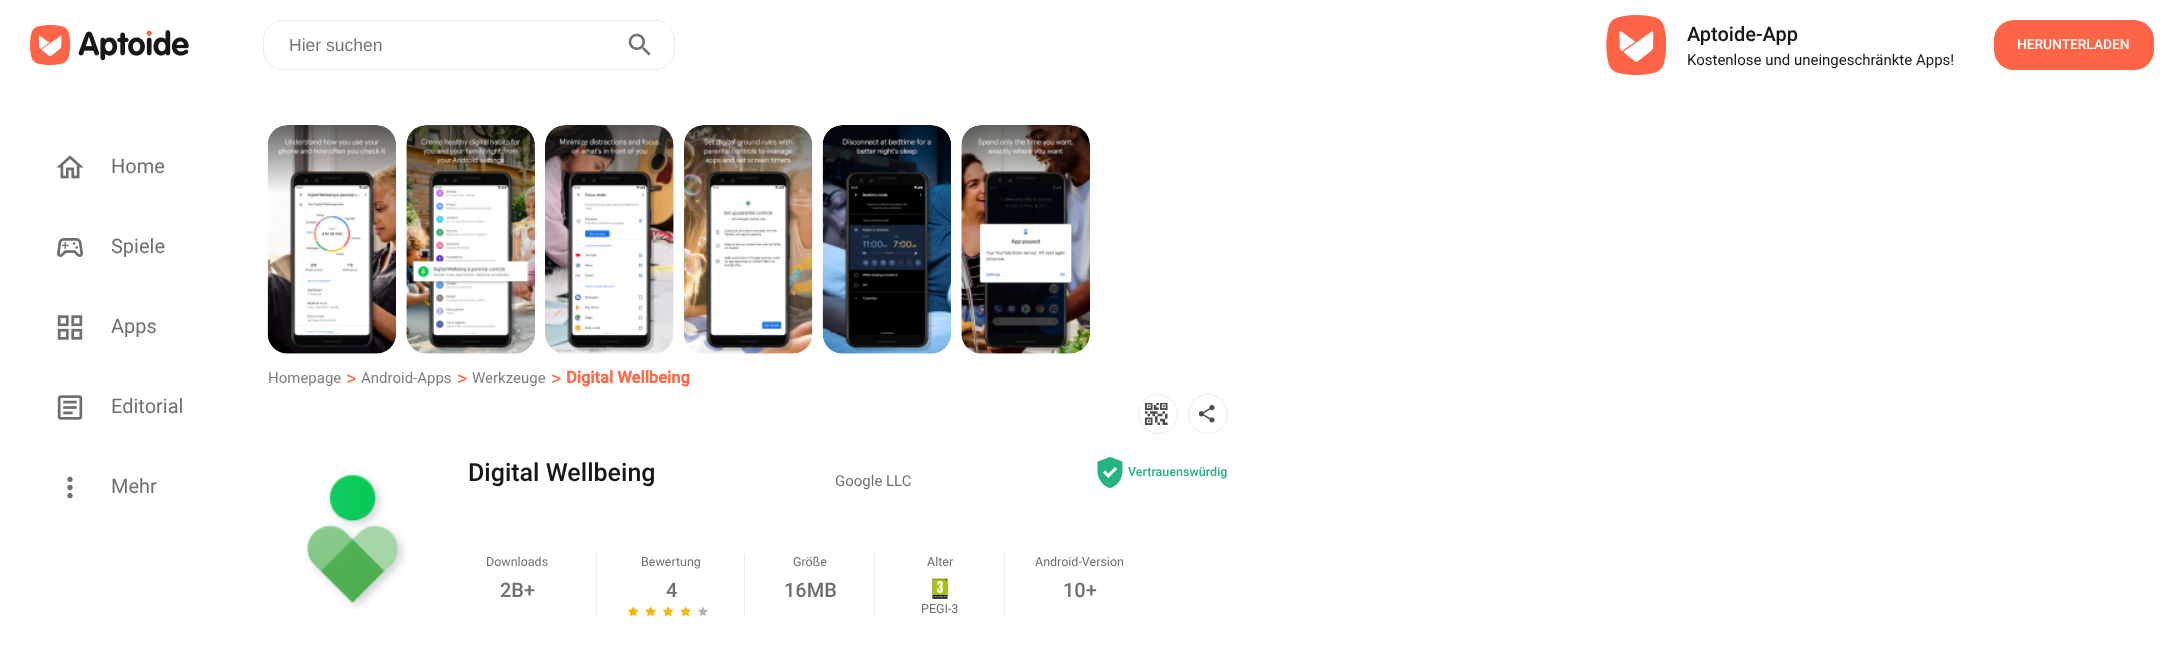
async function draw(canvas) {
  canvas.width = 2184;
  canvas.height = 653;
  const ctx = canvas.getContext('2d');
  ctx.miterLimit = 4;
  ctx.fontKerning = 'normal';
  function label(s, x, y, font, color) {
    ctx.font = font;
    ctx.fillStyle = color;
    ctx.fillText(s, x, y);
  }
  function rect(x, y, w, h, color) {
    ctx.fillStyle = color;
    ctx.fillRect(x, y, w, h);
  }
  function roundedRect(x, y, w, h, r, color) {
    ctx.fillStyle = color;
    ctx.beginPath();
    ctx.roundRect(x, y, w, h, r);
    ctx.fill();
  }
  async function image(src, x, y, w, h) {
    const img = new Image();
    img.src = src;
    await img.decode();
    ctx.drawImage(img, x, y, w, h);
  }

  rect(0, 0, 2184, 653, '#fff');
  await image('assets/img1.png', 30, 25, 159, 40);
  ctx.beginPath();
  ctx.roundRect(263.5, 20.5, 411, 49, 19.5);
  ctx.strokeStyle = '#ebebeb';
  ctx.stroke();
  label('Hier suchen', 289, 51, '17.5px Liberation Sans', '#757575');
  await image('assets/img2.png', 628, 33, 23, 23);
  await image('assets/img3.png', 1606, 15, 60, 60);
  label('Aptoide-App', 1687, 41, '500 20px Roboto', '#171717');
  label('Kostenlose und uneingeschränkte Apps!', 1687, 65, '15px Roboto', '#171717');
  roundedRect(1994, 20, 160, 50, 20, '#fe6446');
  label('HERUNTERLADEN', 2017, 49, '500 13.75px Roboto', '#fff');
  await image('assets/img4.png', 56, 155, 28, 24);
  label('Home', 111, 173, '20px Roboto', '#6f6f6f');
  await image('assets/img5.png', 57, 238, 26, 19);
  label('Spiele', 111, 253, '20px Roboto', '#6f6f6f');
  await image('assets/img6.png', 57, 315, 26, 25);
  label('Apps', 111, 333, '20px Roboto', '#6f6f6f');
  await image('assets/img7.png', 57, 395, 26, 25);
  label('Editorial', 111, 413, '20px Roboto', '#6f6f6f');
  await image('assets/img8.png', 67, 476, 6, 23);
  label('Mehr', 111, 493, '20px Roboto', '#6f6f6f');
  await image('assets/img9.png', 267, 125, 129, 229);
  await image('assets/img10.png', 406, 125, 129, 229);
  await image('assets/img11.png', 545, 125, 129, 229);
  await image('assets/img12.png', 684, 125, 129, 229);
  await image('assets/img13.png', 822, 125, 129, 229);
  await image('assets/img14.png', 961, 125, 129, 229);
  label('Homepage', 268, 383, '15px Roboto', '#7e7e7e');
  label('>', 346, 385, '20px Roboto', '#ff6946');
  label('Android-Apps', 361, 383, '15px Roboto', '#7e7e7e');
  label('>', 457, 385, '20px Roboto', '#ff6946');
  label('Werkzeuge', 472, 383, '15px Roboto', '#7e7e7e');
  label('>', 551, 385, '20px Roboto', '#ff6946');
  label('Digital Wellbeing', 566, 383, 'bold 16.5px Roboto', '#ff6946');
  ctx.beginPath();
  ctx.arc(1158, 414, 19.5, 0, 2 * Math.PI);
  ctx.stroke();
  await image('assets/img15.png', 1145, 403, 23, 22);
  ctx.beginPath();
  ctx.arc(1208, 414, 19.5, 0, 2 * Math.PI);
  ctx.stroke();
  await image('assets/img16.png', 1199, 405, 16, 18);
  await image('assets/img17.png', 306, 474, 100, 136);
  label('Digital Wellbeing', 468, 481, '500 25px Roboto', '#171717');
  await image('assets/img18.png', 1097, 457, 26, 32);
  label('Vertrauenswürdig', 1128, 476, '500 12.5px Roboto', '#25b47e');
  label('Google LLC', 835, 486, '15px Roboto', '#6f6f6f');
  label('Downloads', 486, 566, '12.5px Roboto', '#6f6f6f');
  rect(596, 554, 1, 62, '#ebebeb');
  label('2B+', 500, 597, '500 20px Roboto', '#6f6f6f');
  label('Bewertung', 641, 566, '12.5px Roboto', '#6f6f6f');
  rect(744, 554, 1, 62, '#ebebeb');
  label('4', 666, 597, '500 20px Roboto', '#6f6f6f');
  await image('assets/img19.png', 628, 606, 11, 10);
  await image('assets/img20.png', 645, 606, 11, 10);
  await image('assets/img19.png', 663, 606, 11, 10);
  await image('assets/img20.png', 680, 606, 11, 10);
  await image('assets/img21.png', 698, 606, 10, 10);
  label('Größe', 793, 566, '12.5px Roboto', '#6f6f6f');
  rect(874, 554, 1, 62, '#ebebeb');
  label('16MB', 784, 597, '500 20px Roboto', '#6f6f6f');
  label('Alter', 927, 566, '12.5px Roboto', '#6f6f6f');
  rect(1004, 554, 1, 62, '#ebebeb');
  await image('assets/img22.png', 932, 578, 16, 21);
  label('PEGI-3', 921, 613, '12.5px Roboto', '#6f6f6f');
  label('Android-Version', 1035, 566, '12.5px Roboto', '#6f6f6f');
  label('10+', 1063, 597, '500 20px Roboto', '#6f6f6f');
}

draw(document.querySelector('canvas'));
